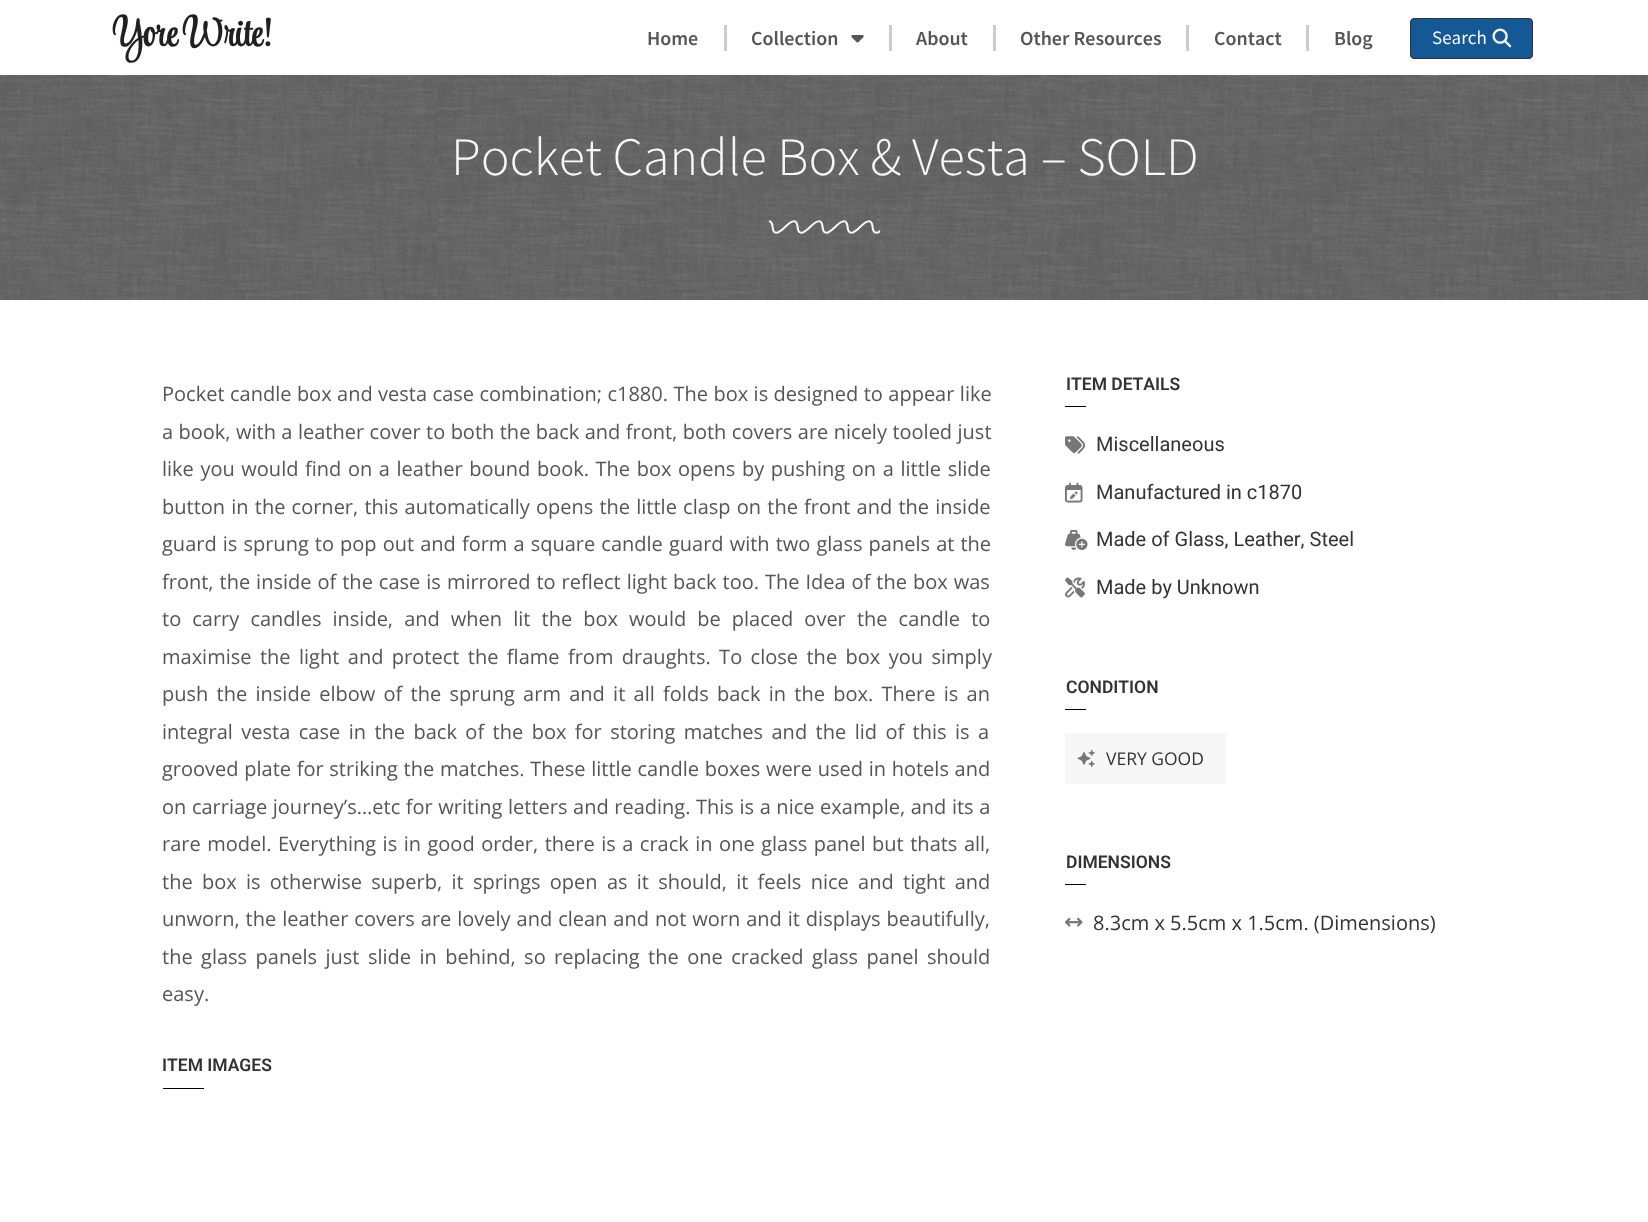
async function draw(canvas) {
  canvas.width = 1648;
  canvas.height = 1222;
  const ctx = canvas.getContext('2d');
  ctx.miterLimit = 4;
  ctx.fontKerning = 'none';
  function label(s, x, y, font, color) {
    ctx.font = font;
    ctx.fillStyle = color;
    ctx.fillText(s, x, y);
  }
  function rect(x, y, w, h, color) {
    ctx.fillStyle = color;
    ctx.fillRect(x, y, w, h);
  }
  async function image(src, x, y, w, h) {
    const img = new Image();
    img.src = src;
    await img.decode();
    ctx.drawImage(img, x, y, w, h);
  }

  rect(0, 0, 1648, 1222, '#fff');
  ctx.wordSpacing = '-2px';
  label('Yore Write!', 112, 46, 'bold 40px Style Script', '#231f20');
  ctx.wordSpacing = '0px';
  label('Home', 647, 45, '600 20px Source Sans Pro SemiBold', '#555');
  rect(724, 25, 3, 26, '#ccc');
  label('Collection', 751, 45, '600 20px Source Sans Pro SemiBold', '#555');
  await image('assets/img1.png', 851, 35, 13, 8);
  rect(889, 25, 3, 26, '#ccc');
  label('About', 916, 45, '600 20px Source Sans Pro SemiBold', '#555');
  rect(993, 25, 3, 26, '#ccc');
  label('Other Resources', 1020, 45, '600 20px Source Sans Pro SemiBold', '#555');
  rect(1186, 25, 3, 26, '#ccc');
  label('Contact', 1214, 45, '600 20px Source Sans Pro SemiBold', '#555');
  rect(1306, 25, 3, 26, '#ccc');
  label('Blog', 1334, 45, '600 20px Source Sans Pro SemiBold', '#555');
  ctx.fillStyle = '#155896';
  ctx.beginPath();
  ctx.roundRect(1410.5, 18.5, 122, 40, 3.5);
  ctx.fill();
  ctx.strokeStyle = '#333';
  ctx.stroke();
  label('Search', 1432, 44, '19px Source Sans Pro', '#f7f7f7');
  await image('assets/img2.png', 1492, 28, 20, 20);
  await image('assets/img3.png', 0, 75, 1648, 225);
  label('Pocket Candle Box & Vesta – SOLD', 451, 175, '300 54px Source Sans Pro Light', '#f7f7f7');
  await image('assets/img4.png', 768, 220, 112, 14);
  ctx.wordSpacing = '0.25px';
  label('Pocket candle box and vesta case combination; c1880. The box is designed to appear like', 162, 401, '20px Open Sans', '#555');
  label('a book, with a leather cover to both the back and front, both covers are nicely tooled just', 162, 439, '20px Open Sans', '#555');
  ctx.wordSpacing = '1.4px';
  label('like you would find on a leather bound book. The box opens by pushing on a little slide', 162, 476, '20px Open Sans', '#555');
  ctx.wordSpacing = '1px';
  label('button in the corner, this automatically opens the little clasp on the front and the inside', 162, 514, '20px Open Sans', '#555');
  ctx.wordSpacing = '0.9px';
  label('guard is sprung to pop out and form a square candle guard with two glass panels at the', 162, 551, '20px Open Sans', '#555');
  ctx.wordSpacing = '0.8px';
  label('front, the inside of the case is mirrored to reflect light back too. The Idea of the box was', 162, 589, '20px Open Sans', '#555');
  ctx.wordSpacing = '5.9px';
  label('to carry candles inside, and when lit the box would be placed over the candle to', 162, 626, '20px Open Sans', '#555');
  ctx.wordSpacing = '3.25px';
  label('maximise the light and protect the flame from draughts. To close the box you simply', 162, 664, '20px Open Sans', '#555');
  ctx.wordSpacing = '3.1px';
  label('push the inside elbow of the sprung arm and it all folds back in the box. There is an', 162, 701, '20px Open Sans', '#555');
  ctx.wordSpacing = '3.25px';
  label('integral vesta case in the back of the box for storing matches and the lid of this is a', 162, 739, '20px Open Sans', '#555');
  ctx.wordSpacing = '0.5px';
  label('grooved plate for striking the matches. These little candle boxes were used in hotels and', 162, 776, '20px Open Sans', '#555');
  ctx.wordSpacing = '0.4px';
  label('on carriage journey’s…etc for writing letters and reading. This is a nice example, and its a', 162, 814, '20px Open Sans', '#555');
  ctx.wordSpacing = '1.3px';
  label('rare model. Everything is in good order, there is a crack in one glass panel but thats all,', 162, 851, '20px Open Sans', '#555');
  ctx.wordSpacing = '4.1px';
  label('the box is otherwise superb, it springs open as it should, it feels nice and tight and', 162, 889, '20px Open Sans', '#555');
  ctx.wordSpacing = '0.75px';
  label('unworn, the leather covers are lovely and clean and not worn and it displays beautifully,', 162, 926, '20px Open Sans', '#555');
  ctx.wordSpacing = '3.25px';
  label('the glass panels just slide in behind, so replacing the one cracked glass panel should', 162, 964, '20px Open Sans', '#555');
  ctx.wordSpacing = '0px';
  label('easy.', 162, 1001, '20px Open Sans', '#555');
  label('ITEM IMAGES', 162, 1071, '600 17.5px Roboto', '#333');
  rect(163, 1088, 41, 1, '#000');
  label('ITEM DETAILS', 1066, 390, '600 17.5px Roboto', '#333');
  rect(1065, 406, 21, 1, '#000');
  await image('assets/img5.png', 1065, 436, 20, 18);
  label('Miscellaneous', 1096, 451, '20px Roboto', '#333');
  await image('assets/img6.png', 1065, 482, 18, 21);
  label('Manufactured in c1870', 1096, 499, '20px Roboto', '#333');
  await image('assets/img7.png', 1065, 530, 23, 20);
  label('Made of Glass, Leather, Steel', 1096, 546, '20px Roboto', '#333');
  await image('assets/img8.png', 1065, 577, 20, 21);
  label('Made by Unknown', 1096, 594, '20px Roboto', '#333');
  label('CONDITION', 1066, 693, '600 17.5px Roboto', '#333');
  rect(1065, 709, 21, 1, '#000');
  rect(1065, 733, 161, 51, '#f7f7f7');
  await image('assets/img9.png', 1077, 749, 18, 19);
  label('VERY GOOD', 1106, 765, '17.5px Open Sans', '#333');
  label('DIMENSIONS', 1066, 868, '600 17.5px Roboto', '#333');
  rect(1065, 884, 21, 1, '#000');
  await image('assets/img10.png', 1065, 917, 18, 10);
  label('8.3cm x 5.5cm x 1.5cm. (Dimensions)', 1093, 930, '20px Open Sans', '#333');
}

draw(document.querySelector('canvas'));
